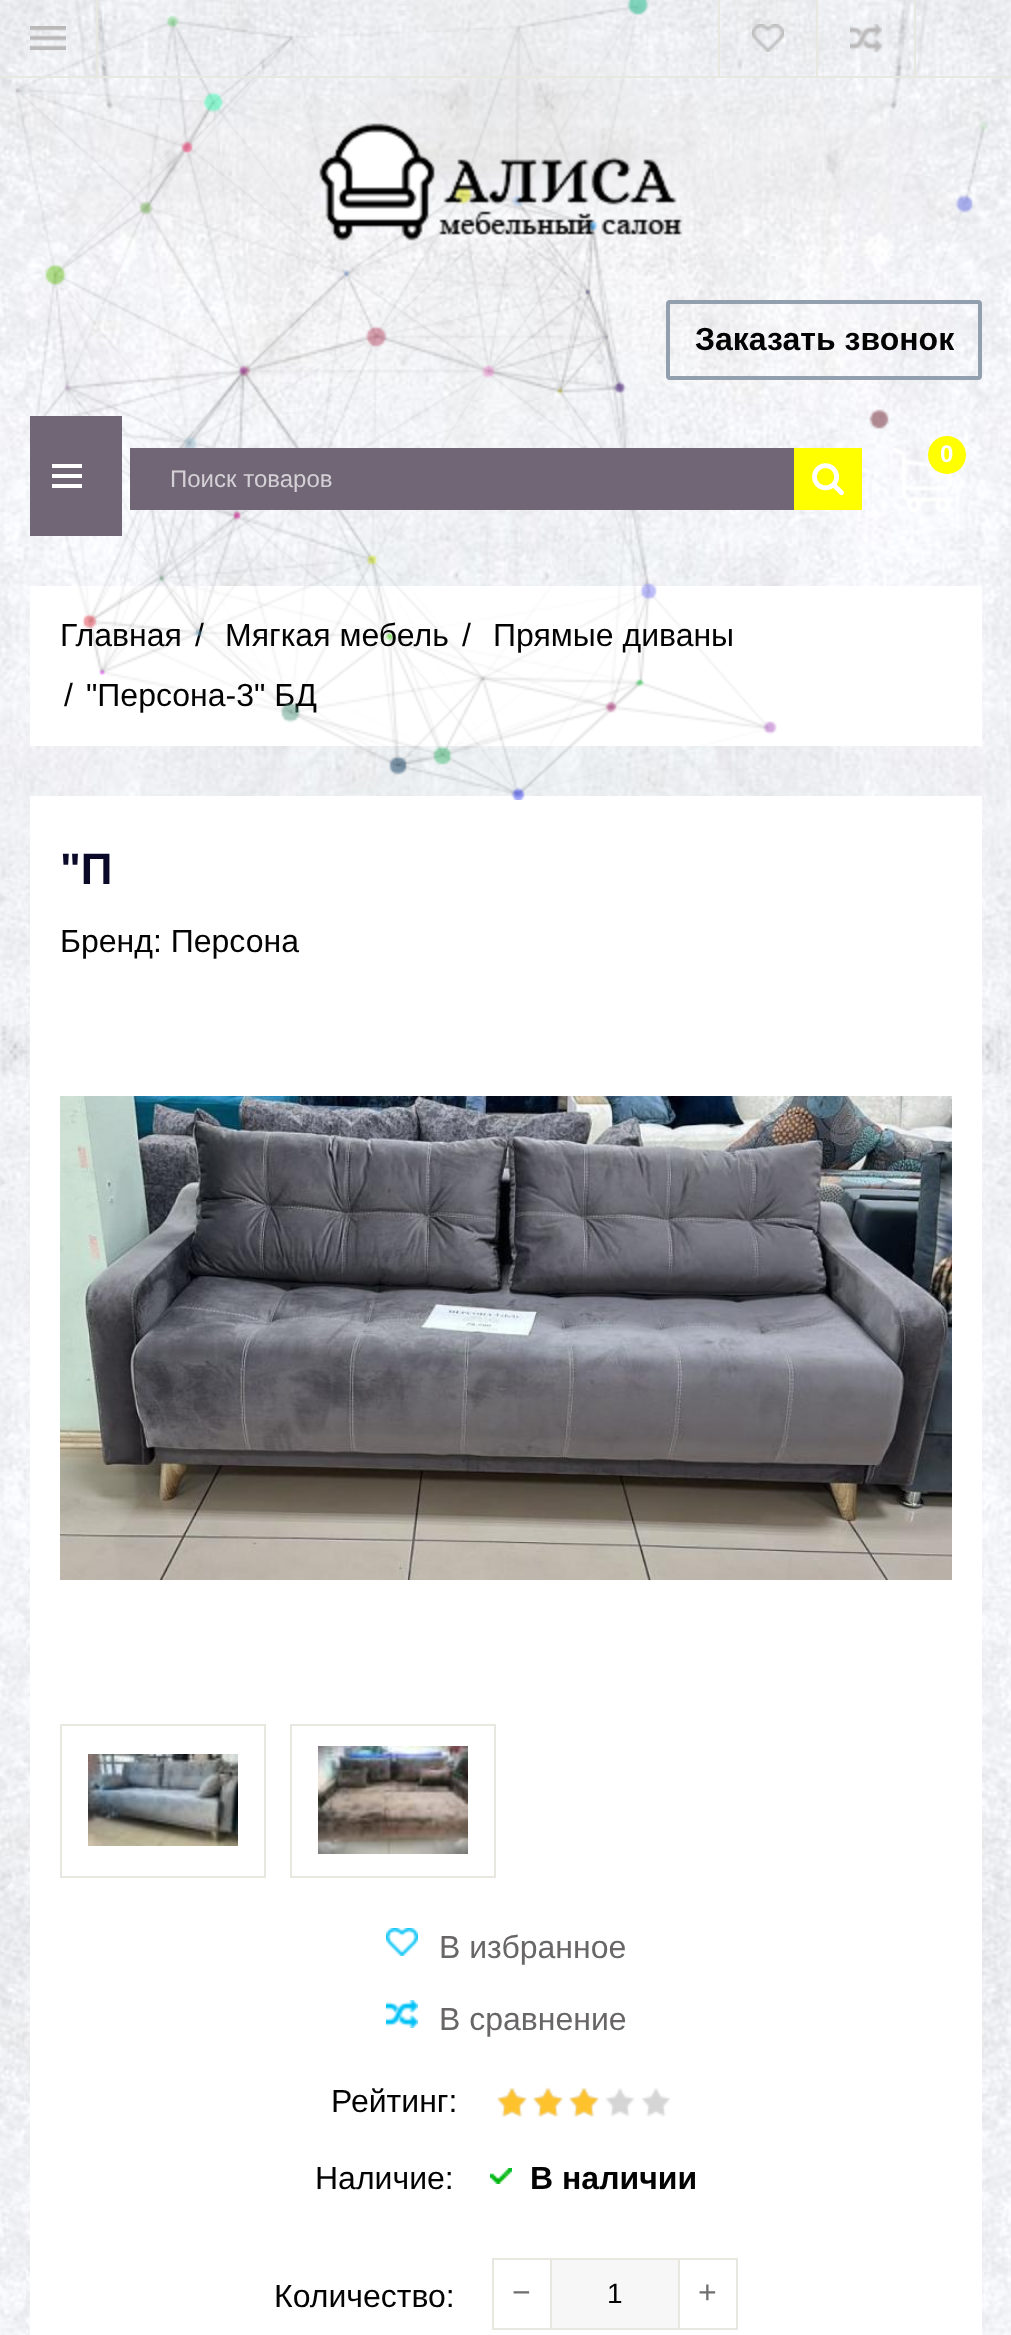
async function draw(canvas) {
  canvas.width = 1011;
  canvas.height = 2335;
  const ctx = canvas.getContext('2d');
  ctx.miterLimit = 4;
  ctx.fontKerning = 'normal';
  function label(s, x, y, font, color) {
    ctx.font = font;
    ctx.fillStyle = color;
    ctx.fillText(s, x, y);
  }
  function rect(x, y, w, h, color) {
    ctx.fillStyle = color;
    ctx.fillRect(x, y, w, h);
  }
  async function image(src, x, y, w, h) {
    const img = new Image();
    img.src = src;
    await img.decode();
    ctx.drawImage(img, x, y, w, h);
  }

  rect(0, 0, 1011, 2335, '#fff');
  await image('assets/img2.png', 0, 0, 1011, 2335);
  rect(30, 586, 952, 160, '#fff');
  label('/', 195, 646, '32px Liberation Sans', '#030303');
  label('/', 462, 646, '32px Liberation Sans', '#030303');
  label('/', 64, 706, '32px Liberation Sans', '#030303');
  label('"Персона-3" БД', 86, 706, '32px Liberation Sans', '#030303');
  rect(30, 796, 952, 1539, '#fff');
  await image('assets/img1.png', 15, 0, 973, 800);
  rect(0, 76, 1011, 2, '#e8e8e1');
  rect(96, 0, 2, 76, '#e8e8e1');
  await image('assets/img3.png', 30, 26, 36, 24);
  rect(718, 0, 2, 76, '#e8e8e1');
  await image('assets/img4.png', 752, 24, 32, 28);
  rect(816, 0, 2, 76, '#e8e8e1');
  await image('assets/img5.png', 850, 24, 32, 28);
  rect(914, 0, 2, 76, '#e8e8e1');
  await image('assets/img6.png', 319, 123, 364, 118);
  ctx.beginPath();
  ctx.roundRect(668, 302, 312, 76, 2);
  ctx.strokeStyle = '#929faf';
  ctx.lineWidth = 4;
  ctx.stroke();
  label('Заказать звонок', 695, 350, 'bold 32px Liberation Sans', '#030303');
  rect(30, 416, 92, 120, '#716675');
  rect(52, 464, 30, 4, '#fff');
  rect(52, 474, 30, 4, '#fff');
  rect(52, 484, 30, 4, '#fff');
  await image('assets/img7.png', 892, 448, 60, 64);
  ctx.fillStyle = '#ff0';
  ctx.beginPath();
  ctx.arc(947, 455, 19, 0, 2 * Math.PI);
  ctx.fill();
  label('0', 940, 462, 'bold 24px Liberation Sans', '#fff');
  rect(130, 448, 664, 62, '#716675');
  label('Поиск товаров', 170, 487, '24px Liberation Sans', '#d4d1d6');
  rect(794, 448, 68, 62, '#ff0');
  await image('assets/img8.png', 812, 463, 32, 33);
  label('Главная', 60, 646, '32px Liberation Sans', '#030303');
  label('Мягкая мебель', 225, 646, '32px Liberation Sans', '#030303');
  label('Прямые диваны', 493, 646, '32px Liberation Sans', '#030303');
  label('"П', 60, 884, 'bold 44px Liberation Sans', '#0a0a28');
  label('Бренд: Персона', 60, 952, '32px Liberation Sans', '#030303');
  await image('assets/img9.png', 60, 1096, 892, 484);
  ctx.strokeStyle = '#e8e8e1';
  ctx.lineWidth = 2;
  ctx.strokeRect(61, 1725, 204, 152);
  await image('assets/img10.png', 88, 1754, 150, 92);
  ctx.strokeRect(291, 1725, 204, 152);
  await image('assets/img11.png', 318, 1746, 150, 108);
  await image('assets/img12.png', 386, 1928, 32, 28);
  label('В избранное', 439, 1958, '32px Liberation Sans', '#686666');
  await image('assets/img13.png', 386, 2000, 32, 28);
  label('В сравнение', 439, 2030, '32px Liberation Sans', '#686666');
  label('Рейтинг:', 331, 2112, '32px Liberation Sans', '#030303');
  await image('assets/img14.png', 497, 2088, 174, 29);
  await image('assets/img15.png', 497, 2087, 102, 30);
  label('Наличие:', 315, 2189, '32px Liberation Sans', '#030303');
  await image('assets/img16.png', 490, 2168, 22, 16);
  label('В наличии', 530, 2189, 'bold 32px Liberation Sans', '#030303');
  label('Количество:', 274, 2307, '32px Liberation Sans', '#030303');
  ctx.strokeRect(493, 2259, 244, 70);
  label('−', 512, 2303, '32px Liberation Sans', '#707070');
  rect(552, 2260, 126, 68, '#f7f7f7');
  rect(678, 2260, 2, 68, '#e8e8e1');
  rect(550, 2260, 2, 68, '#e8e8e1');
  label('1', 607, 2303, '28px Liberation Sans', '#030303');
  label('+', 698, 2303, '32px Liberation Sans', '#707070');
}

draw(document.querySelector('canvas'));
